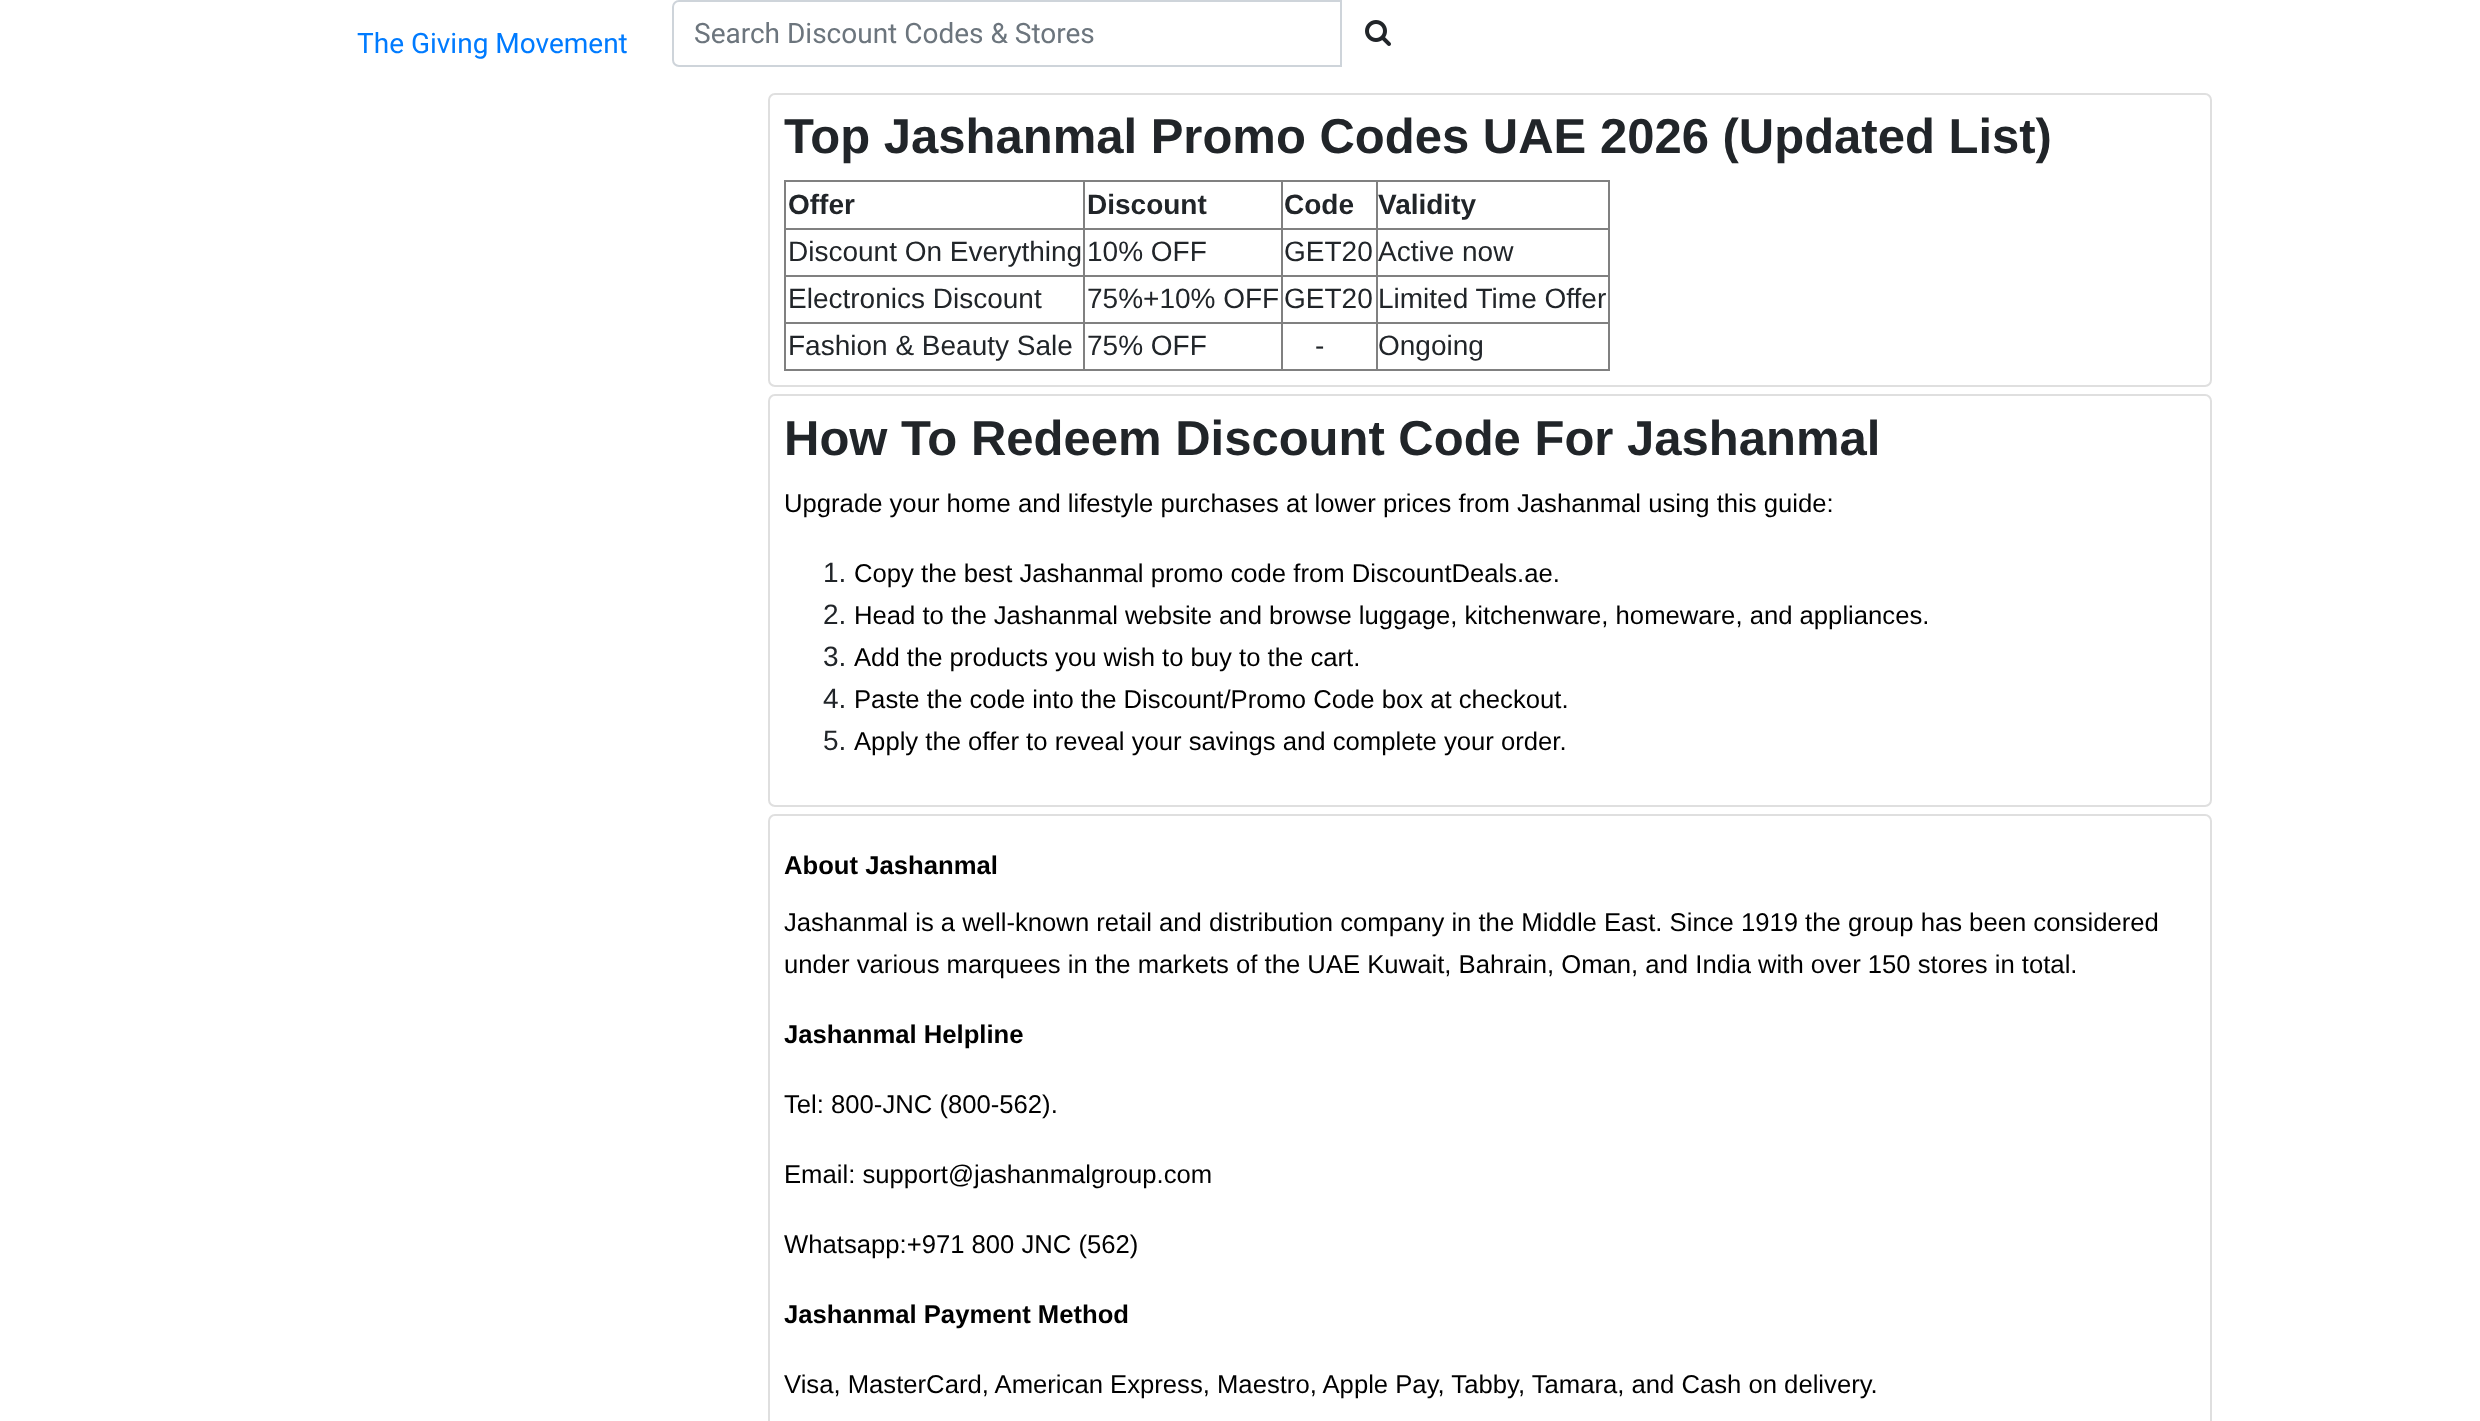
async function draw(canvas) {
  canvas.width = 2480;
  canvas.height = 1421;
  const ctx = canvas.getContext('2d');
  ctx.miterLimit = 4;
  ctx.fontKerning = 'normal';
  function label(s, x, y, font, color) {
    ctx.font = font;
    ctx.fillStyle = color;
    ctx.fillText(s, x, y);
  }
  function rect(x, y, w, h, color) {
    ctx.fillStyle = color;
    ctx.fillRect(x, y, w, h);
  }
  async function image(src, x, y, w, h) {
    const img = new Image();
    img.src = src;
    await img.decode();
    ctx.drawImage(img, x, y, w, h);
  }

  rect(0, 0, 2480, 1421, '#fff');
  ctx.beginPath();
  ctx.roundRect(673, 1, 668, 65, [6, 0, 0, 6]);
  ctx.strokeStyle = '#ced4da';
  ctx.lineWidth = 2;
  ctx.stroke();
  label('Search Discount Codes & Stores', 694, 43, '28px Roboto', '#6c757d');
  await image('assets/img1.png', 1365, 20, 26, 26);
  label('The Giving Movement', 357, 53, '28px Roboto', '#007bff');
  ctx.beginPath();
  ctx.roundRect(769, 94, 1442, 292, 6);
  ctx.strokeStyle = '#dfdfdf';
  ctx.stroke();
  label('Top Jashanmal Promo Codes UAE 2026 (Updated List)', 784, 153, 'bold 49px Liberation Sans', '#212529');
  rect(784, 180, 826, 2, '#808080');
  rect(1608, 180, 2, 191, '#808080');
  rect(784, 369, 826, 2, '#808080');
  rect(784, 180, 2, 191, '#808080');
  label('Offer', 788, 214, 'bold 28px Liberation Sans', '#212529');
  rect(1376, 228, 234, 2, '#808080');
  rect(1376, 275, 234, 2, '#808080');
  rect(1376, 322, 234, 2, '#808080');
  rect(1376, 322, 2, 49, '#808080');
  rect(1281, 322, 96, 2, '#808080');
  rect(1376, 275, 2, 49, '#808080');
  rect(1281, 275, 96, 2, '#808080');
  rect(1376, 228, 2, 49, '#808080');
  rect(1281, 228, 96, 2, '#808080');
  rect(1281, 322, 2, 49, '#808080');
  rect(1083, 322, 200, 2, '#808080');
  rect(1281, 275, 2, 49, '#808080');
  rect(1083, 275, 200, 2, '#808080');
  rect(1281, 228, 2, 49, '#808080');
  rect(1083, 228, 200, 2, '#808080');
  rect(1083, 322, 2, 49, '#808080');
  rect(784, 322, 301, 2, '#808080');
  rect(1083, 275, 2, 49, '#808080');
  rect(784, 275, 301, 2, '#808080');
  rect(1083, 228, 2, 49, '#808080');
  rect(784, 228, 301, 2, '#808080');
  rect(1083, 180, 2, 49, '#808080');
  label('Discount', 1087, 214, 'bold 28px Liberation Sans', '#212529');
  rect(1281, 180, 2, 49, '#808080');
  label('Code', 1284, 214, 'bold 28px Liberation Sans', '#212529');
  rect(1376, 180, 2, 49, '#808080');
  label('Validity', 1378, 214, 'bold 28px Liberation Sans', '#212529');
  label('Discount On Everything', 788, 261, '28px Liberation Sans', '#212529');
  label('10% OFF', 1087, 261, '28px Liberation Sans', '#212529');
  label('GET20', 1284, 261, '28px Liberation Sans', '#212529');
  label('Active now', 1378, 261, '28px Liberation Sans', '#212529');
  label('Electronics Discount', 788, 308, '28px Liberation Sans', '#212529');
  label('75%+10% OFF', 1087, 308, '28px Liberation Sans', '#212529');
  label('GET20', 1284, 308, '28px Liberation Sans', '#212529');
  label('Limited Time Offer', 1378, 308, '28px Liberation Sans', '#212529');
  label('Fashion & Beauty Sale', 788, 355, '28px Liberation Sans', '#212529');
  label('75% OFF', 1087, 355, '28px Liberation Sans', '#212529');
  label('-', 1315, 355, '28px Liberation Sans', '#212529');
  label('Ongoing', 1378, 355, '28px Liberation Sans', '#212529');
  ctx.beginPath();
  ctx.roundRect(769, 395, 1442, 411, 6);
  ctx.stroke();
  label('How To Redeem Discount Code For Jashanmal', 784, 455, 'bold 49px Liberation Sans', '#212529');
  label('Upgrade your home and lifestyle purchases at lower prices from Jashanmal using this guide:', 784, 512, '25.67px Liberation Sans', '#000');
  label('1.', 823, 582, '28px Liberation Sans', '#212529');
  label('Copy the best Jashanmal promo code from DiscountDeals.ae.', 854, 582, '25.67px Liberation Sans', '#000');
  label('2.', 823, 624, '28px Liberation Sans', '#212529');
  label('Head to the Jashanmal website and browse luggage, kitchenware, homeware, and appliances.', 854, 624, '25.67px Liberation Sans', '#000');
  label('3.', 823, 666, '28px Liberation Sans', '#212529');
  label('Add the products you wish to buy to the cart.', 854, 666, '25.67px Liberation Sans', '#000');
  label('4.', 823, 708, '28px Liberation Sans', '#212529');
  label('Paste the code into the Discount/Promo Code box at checkout.', 854, 708, '25.67px Liberation Sans', '#000');
  label('5.', 823, 750, '28px Liberation Sans', '#212529');
  label('Apply the offer to reveal your savings and complete your order.', 854, 750, '25.67px Liberation Sans', '#000');
  ctx.beginPath();
  ctx.roundRect(769, 815, 1442, 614, 6);
  ctx.stroke();
  label('About Jashanmal', 784, 874, 'bold 25.67px Liberation Sans', '#000');
  label('Jashanmal is a well-known retail and distribution company in the Middle East. Since 1919 the group has been considered', 784, 931, '25.67px Liberation Sans', '#000');
  label('under various marquees in the markets of the UAE Kuwait, Bahrain, Oman, and India with over 150 stores in total.', 784, 973, '25.67px Liberation Sans', '#000');
  label('Jashanmal Helpline', 784, 1043, 'bold 25.67px Liberation Sans', '#000');
  label('Tel: 800-JNC (800-562).', 784, 1113, '25.67px Liberation Sans', '#000');
  label('Email: support@jashanmalgroup.com', 784, 1183, '25.67px Liberation Sans', '#000');
  label('Whatsapp:+971 800 JNC (562)', 784, 1253, '25.67px Liberation Sans', '#000');
  label('Jashanmal Payment Method', 784, 1323, 'bold 25.67px Liberation Sans', '#000');
  label('Visa, MasterCard, American Express, Maestro, Apple Pay, Tabby, Tamara, and Cash on delivery.', 784, 1393, '25.67px Liberation Sans', '#000');
}

draw(document.querySelector('canvas'));
